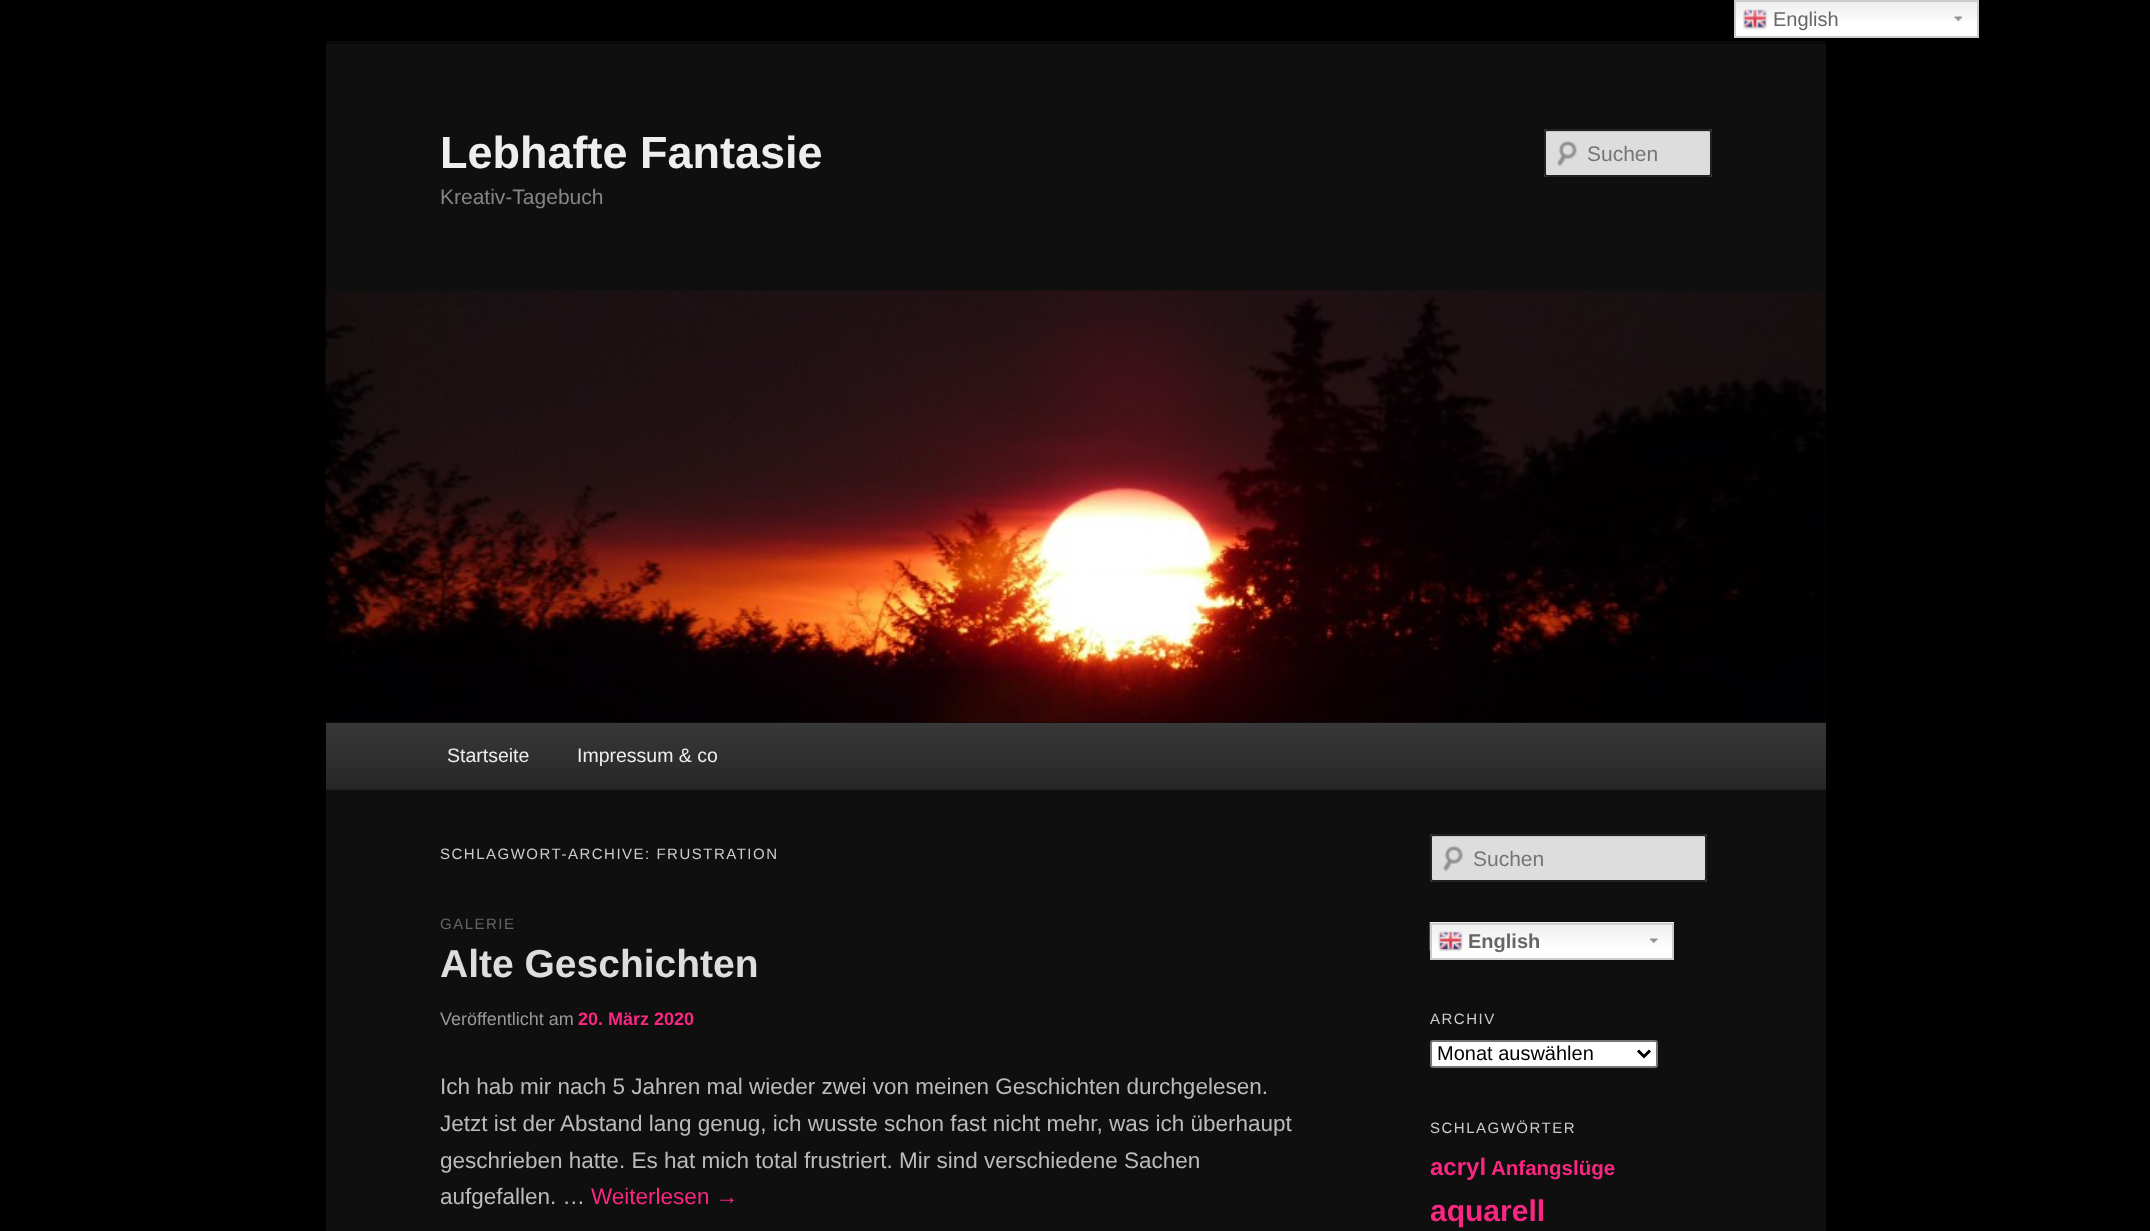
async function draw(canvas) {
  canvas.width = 2150;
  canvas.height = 1231;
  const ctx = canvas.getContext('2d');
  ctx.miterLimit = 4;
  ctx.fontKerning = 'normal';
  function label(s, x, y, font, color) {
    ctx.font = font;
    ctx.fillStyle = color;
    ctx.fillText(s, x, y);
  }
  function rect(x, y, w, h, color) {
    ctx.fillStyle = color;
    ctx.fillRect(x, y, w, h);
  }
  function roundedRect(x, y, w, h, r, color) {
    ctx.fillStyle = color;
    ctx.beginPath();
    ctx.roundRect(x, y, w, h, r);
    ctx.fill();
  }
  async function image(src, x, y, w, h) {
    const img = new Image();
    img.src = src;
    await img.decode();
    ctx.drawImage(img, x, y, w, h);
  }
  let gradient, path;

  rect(0, 0, 2150, 1231, '#000');
  rect(1736, 21, 241, 15, '#fff');
  await image('assets/img1.png', 1736, 2, 241, 19);
  await image('assets/img2.png', 1954, 16, 8, 5);
  ctx.strokeStyle = '#ccc';
  ctx.lineWidth = 2;
  ctx.strokeRect(1735, 1, 243, 36);
  await image('assets/img3.png', 1743, 9, 24, 21);
  label('English', 1773, 26, '20px Liberation Sans', '#666');
  rect(326, 44, 1500, 1187, '#0f0f0f');
  rect(326, 41, 1500, 3, '#0a0a0a');
  label('Lebhafte Fantasie', 440, 168, 'bold 45px Liberation Sans', '#eee');
  label('Kreativ-Tagebuch', 440, 204, '21px Liberation Sans', '#858585');
  roundedRect(1544, 129, 168, 48, 3, '#ddd');
  await image('assets/img4.png', 1557, 140, 20, 27);
  ctx.fillStyle = '#c7c7c7';
  path = new Path2D('M1546 132H1708C1709 132 1710 133 1710 134V132C1710 132 1709 131 1708 131H1546C1546 131 1545 132 1545 132V134Z');
  ctx.fill(path);
  ctx.beginPath();
  ctx.roundRect(1545, 130, 166, 46, 2);
  ctx.strokeStyle = '#222';
  ctx.stroke();
  label('Suchen', 1587, 161, '21px Liberation Sans', '#757575');
  await image('assets/img5.png', 325, 290, 1501, 433);
  gradient = ctx.createLinearGradient(1076, 723, 1076, 788);
  gradient.addColorStop(0, '#383838');
  gradient.addColorStop(1, '#272727');
  ctx.fillStyle = gradient;
  ctx.fillRect(326, 723, 1500, 65);
  rect(326, 788, 1500, 2, '#222');
  label('Startseite', 447, 762, '19.5px Liberation Sans', '#eee');
  label('Impressum & co', 577, 762, '19.5px Liberation Sans', '#eee');
  ctx.letterSpacing = '1.5px';
  label('SCHLAGWORT-ARCHIVE: FRUSTRATION', 440, 859, '15px Liberation Sans', '#ccc');
  label('GALERIE', 440, 929, '15px Liberation Sans', '#666');
  ctx.letterSpacing = '0px';
  label('Alte Geschichten', 440, 977, 'bold 39px Liberation Sans', '#ddd');
  label('Veröffentlicht am', 440, 1025, '18px Liberation Sans', '#999');
  label('20. März 2020', 578, 1025, 'bold 18px Liberation Sans', '#f92782');
  label('Ich hab mir nach 5 Jahren mal wieder zwei von meinen Geschichten durchgelesen.', 440, 1094, '22.5px Liberation Sans', '#bbb');
  label('Jetzt ist der Abstand lang genug, ich wusste schon fast nicht mehr, was ich überhaupt', 440, 1131, '22.5px Liberation Sans', '#bbb');
  label('geschrieben hatte. Es hat mich total frustriert. Mir sind verschiedene Sachen', 440, 1168, '22.5px Liberation Sans', '#bbb');
  label('aufgefallen. …', 440, 1204, '22.5px Liberation Sans', '#bbb');
  label('Weiterlesen →', 591, 1204, '22.5px Liberation Sans', '#f92782');
  roundedRect(1430, 834, 277, 48, 3, '#ddd');
  await image('assets/img6.png', 1443, 845, 20, 27);
  ctx.fillStyle = '#c7c7c7';
  path = new Path2D('M1432 837H1704L1706 838V837L1704 836H1432C1431 836 1431 837 1431 838Z');
  ctx.fill(path);
  ctx.beginPath();
  ctx.roundRect(1431, 835, 275, 46, 2);
  ctx.stroke();
  label('Suchen', 1473, 866, '21px Liberation Sans', '#757575');
  rect(1432, 950, 240, 8, '#fff');
  await image('assets/img7.png', 1429, 922, 245, 29);
  await image('assets/img8.png', 1650, 938, 8, 5);
  ctx.strokeStyle = '#ccc';
  ctx.strokeRect(1431, 924, 242, 35);
  await image('assets/img9.png', 1438, 931, 25, 21);
  label('English', 1468, 948, 'bold 20px Liberation Sans', '#666');
  ctx.letterSpacing = '1.5px';
  label('ARCHIV', 1430, 1024, '15px Liberation Sans', '#ccc');
  ctx.fillStyle = '#fff';
  ctx.beginPath();
  ctx.roundRect(1431, 1041, 226, 26, 2);
  ctx.fill();
  ctx.strokeStyle = '#767676';
  ctx.stroke();
  path = new Path2D('M1638 1050.5L1644 1056.5L1650 1050.5');
  ctx.strokeStyle = '#000';
  ctx.lineWidth = 3;
  ctx.stroke(path);
  ctx.letterSpacing = '0px';
  label('Monat auswählen', 1437, 1060, '20px Liberation Sans', '#000');
  ctx.letterSpacing = '1.5px';
  label('SCHLAGWÖRTER', 1430, 1133, '15px Liberation Sans', '#ccc');
  ctx.letterSpacing = '0px';
  label('acryl', 1430, 1175, 'bold 24px Liberation Sans', '#f92782');
  label('Anfangslüge', 1491, 1175, 'bold 20.5px Liberation Sans', '#f92782');
  label('aquarell', 1430, 1221, 'bold 30px Liberation Sans', '#f92782');
}

draw(document.querySelector('canvas'));
